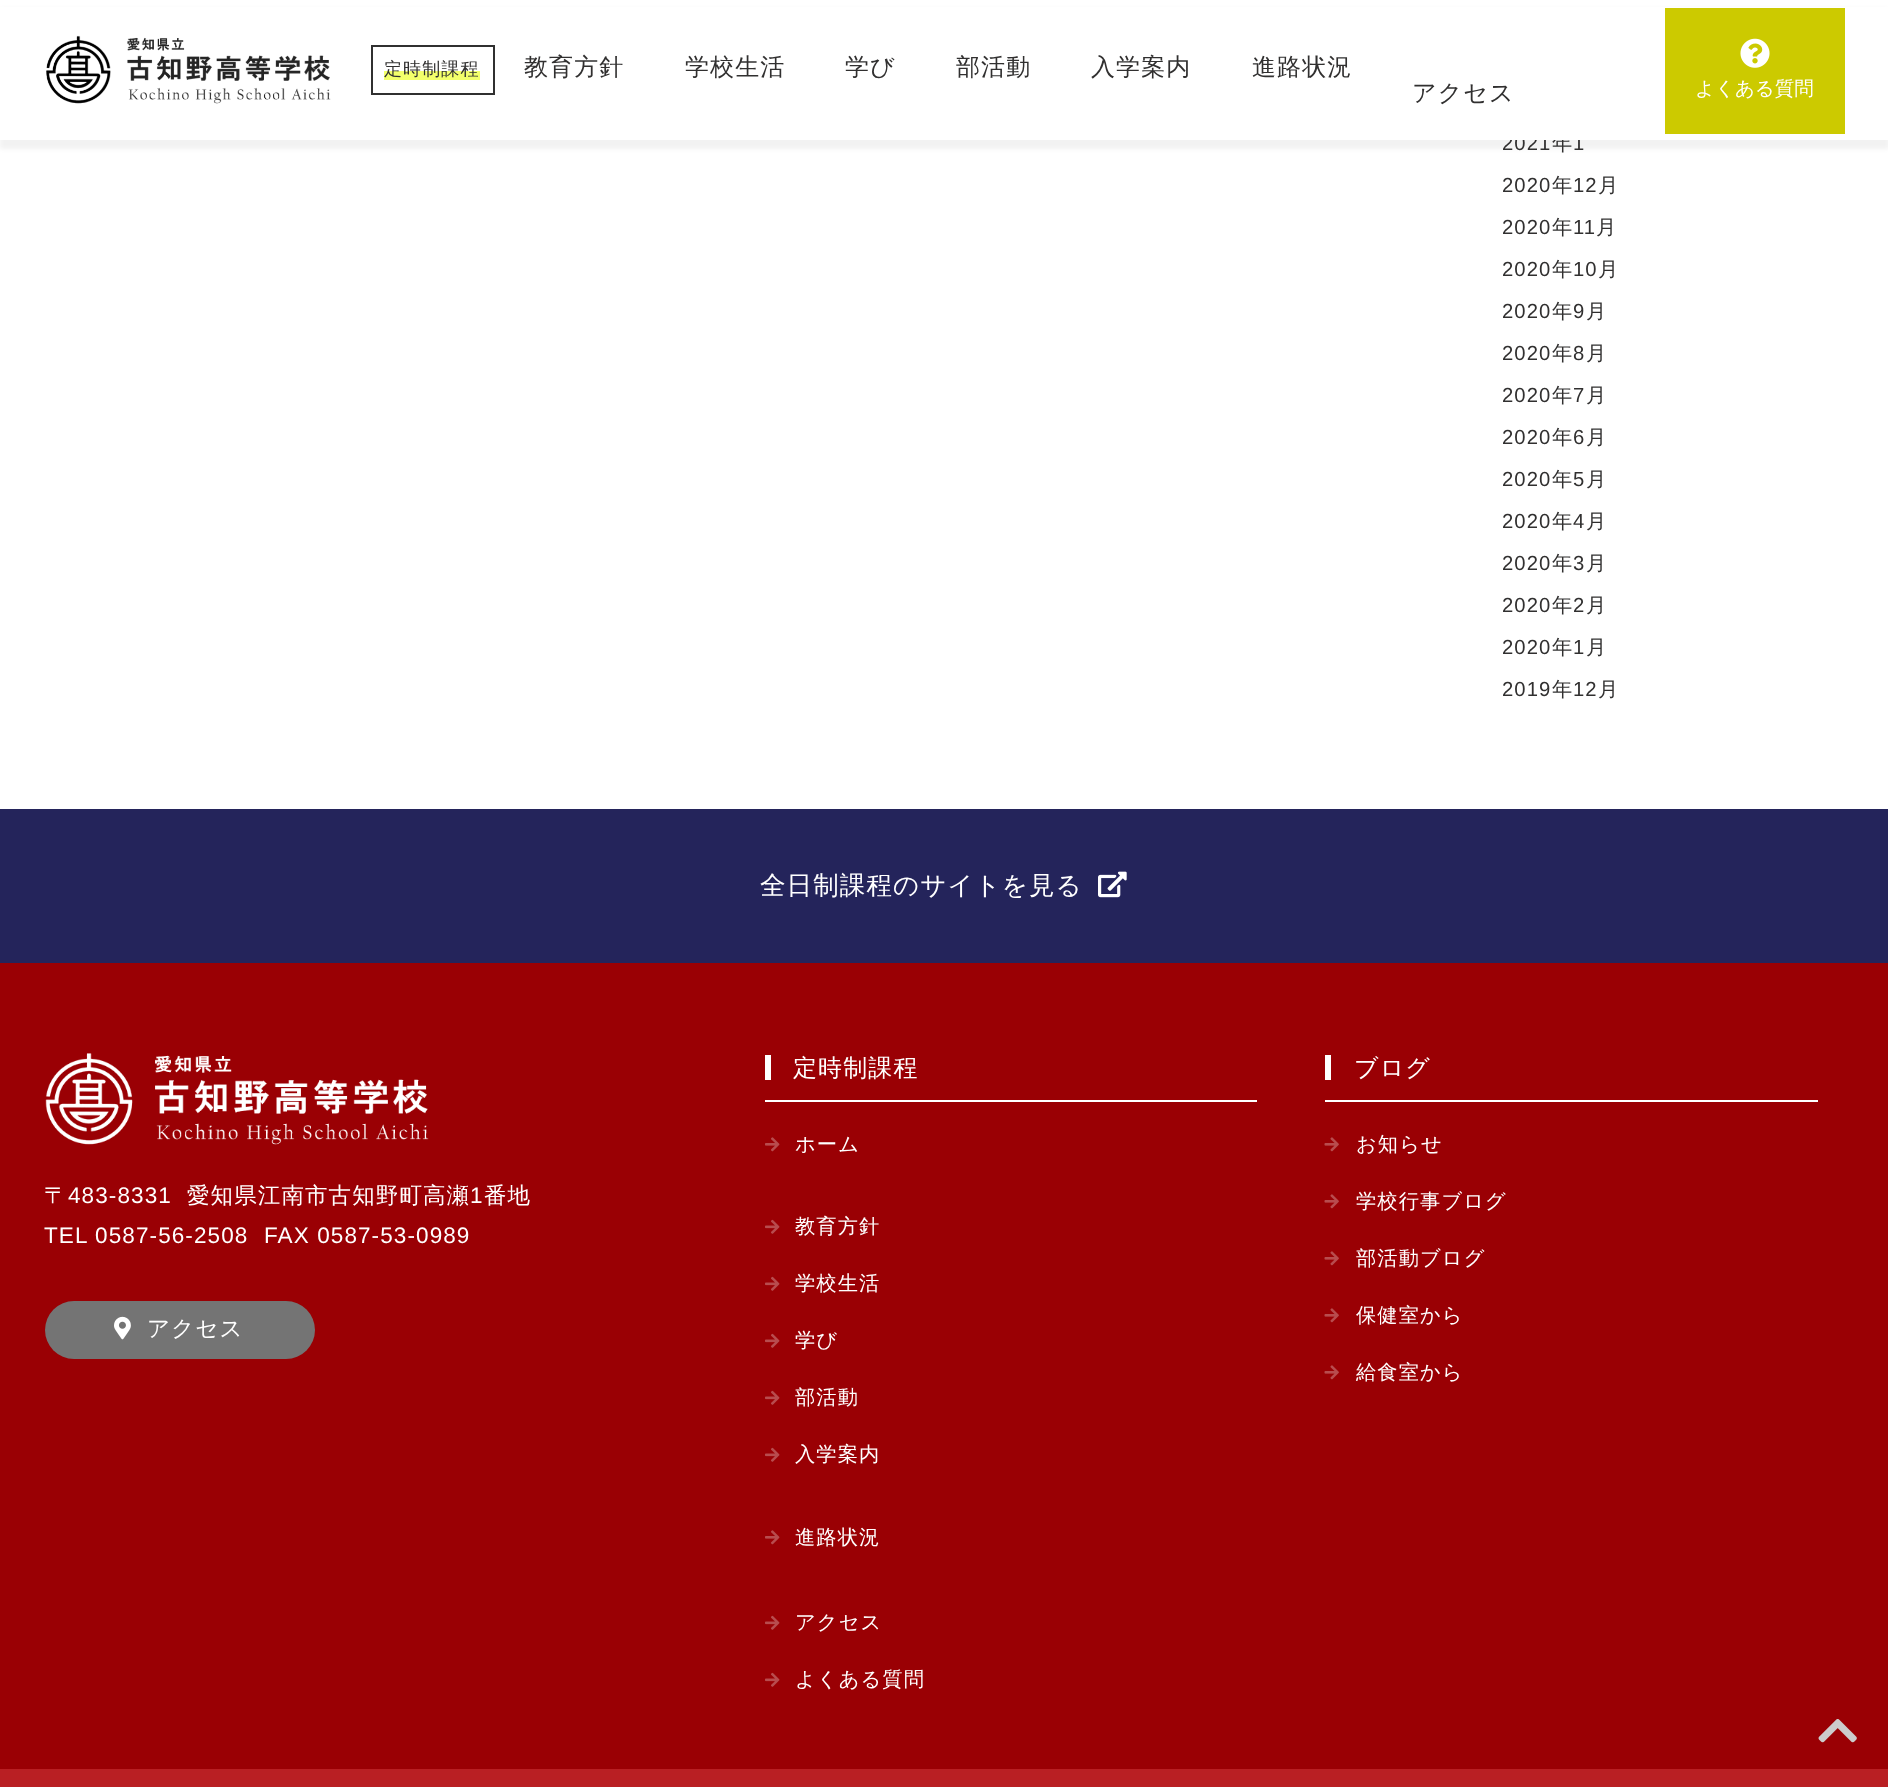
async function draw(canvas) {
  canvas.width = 1888;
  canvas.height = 1787;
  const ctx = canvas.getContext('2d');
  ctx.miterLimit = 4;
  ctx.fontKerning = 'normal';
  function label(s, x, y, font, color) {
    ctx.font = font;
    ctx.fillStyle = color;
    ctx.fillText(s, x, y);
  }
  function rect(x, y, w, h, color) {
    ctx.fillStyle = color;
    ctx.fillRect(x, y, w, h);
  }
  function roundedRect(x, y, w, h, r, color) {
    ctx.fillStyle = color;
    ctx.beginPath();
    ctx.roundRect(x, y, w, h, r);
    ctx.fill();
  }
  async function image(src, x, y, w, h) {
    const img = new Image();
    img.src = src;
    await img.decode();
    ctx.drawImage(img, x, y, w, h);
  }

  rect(0, 0, 1888, 1787, '#fff');
  ctx.fillStyle = '#0000000d';
  ctx.filter = 'blur(2px)';
  ctx.beginPath();
  ctx.rect(0, 9, 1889, 140);
  ctx.fill();
  ctx.filter = 'none';
  ctx.letterSpacing = '1.1px';
  label('2021', 1502, 150, '20.25px Liberation Sans', '#313030');
  label('年', 1552, 150, '500 20.25px WenQuanYi Zen Hei', '#313030');
  label('1', 1573, 150, '20.25px Liberation Sans', '#313030');
  rect(0, 7, 1888, 133, '#fff');
  await image('assets/img1.png', 46, 35, 285, 69);
  ctx.strokeStyle = '#303030';
  ctx.lineWidth = 2;
  ctx.strokeRect(372, 46, 122, 48);
  rect(384, 71, 96, 9, '#f3ff6b');
  label('定時制課程', 384, 75, '500 18px WenQuanYi Zen Hei', '#313030');
  label('教育方針', 524, 75, '500 24px WenQuanYi Zen Hei', '#313030');
  label('学校生活', 685, 75, '500 24px WenQuanYi Zen Hei', '#313030');
  label('学び', 845, 75, '500 24px WenQuanYi Zen Hei', '#313030');
  label('部活動', 956, 75, '500 24px WenQuanYi Zen Hei', '#313030');
  label('入学案内', 1091, 75, '500 24px WenQuanYi Zen Hei', '#313030');
  label('進路状況', 1252, 75, '500 24px WenQuanYi Zen Hei', '#313030');
  label('アクセス', 1412, 101, '500 24px WenQuanYi Zen Hei', '#313030');
  rect(1665, 8, 180, 126, '#ccca00');
  await image('assets/img2.png', 1740, 38, 30, 30);
  ctx.letterSpacing = '0px';
  label('よくある質問', 1695, 95, '500 19.5px WenQuanYi Zen Hei', '#fff');
  ctx.letterSpacing = '1.1px';
  label('2020', 1502, 192, '20.25px Liberation Sans', '#313030');
  label('年', 1552, 192, '500 20.25px WenQuanYi Zen Hei', '#313030');
  label('12', 1573, 192, '20.25px Liberation Sans', '#313030');
  label('月', 1598, 192, '500 20.25px WenQuanYi Zen Hei', '#313030');
  label('2020', 1502, 234, '20.25px Liberation Sans', '#313030');
  label('年', 1552, 234, '500 20.25px WenQuanYi Zen Hei', '#313030');
  label('11', 1573, 234, '20.25px Liberation Sans', '#313030');
  label('月', 1596, 234, '500 20.25px WenQuanYi Zen Hei', '#313030');
  label('2020', 1502, 276, '20.25px Liberation Sans', '#313030');
  label('年', 1552, 276, '500 20.25px WenQuanYi Zen Hei', '#313030');
  label('10', 1573, 276, '20.25px Liberation Sans', '#313030');
  label('月', 1598, 276, '500 20.25px WenQuanYi Zen Hei', '#313030');
  label('2020', 1502, 318, '20.25px Liberation Sans', '#313030');
  label('年', 1552, 318, '500 20.25px WenQuanYi Zen Hei', '#313030');
  label('9', 1573, 318, '20.25px Liberation Sans', '#313030');
  label('月', 1586, 318, '500 20.25px WenQuanYi Zen Hei', '#313030');
  label('2020', 1502, 360, '20.25px Liberation Sans', '#313030');
  label('年', 1552, 360, '500 20.25px WenQuanYi Zen Hei', '#313030');
  label('8', 1573, 360, '20.25px Liberation Sans', '#313030');
  label('月', 1586, 360, '500 20.25px WenQuanYi Zen Hei', '#313030');
  label('2020', 1502, 402, '20.25px Liberation Sans', '#313030');
  label('年', 1552, 402, '500 20.25px WenQuanYi Zen Hei', '#313030');
  label('7', 1573, 402, '20.25px Liberation Sans', '#313030');
  label('月', 1586, 402, '500 20.25px WenQuanYi Zen Hei', '#313030');
  label('2020', 1502, 444, '20.25px Liberation Sans', '#313030');
  label('年', 1552, 444, '500 20.25px WenQuanYi Zen Hei', '#313030');
  label('6', 1573, 444, '20.25px Liberation Sans', '#313030');
  label('月', 1586, 444, '500 20.25px WenQuanYi Zen Hei', '#313030');
  label('2020', 1502, 486, '20.25px Liberation Sans', '#313030');
  label('年', 1552, 486, '500 20.25px WenQuanYi Zen Hei', '#313030');
  label('5', 1573, 486, '20.25px Liberation Sans', '#313030');
  label('月', 1586, 486, '500 20.25px WenQuanYi Zen Hei', '#313030');
  label('2020', 1502, 528, '20.25px Liberation Sans', '#313030');
  label('年', 1552, 528, '500 20.25px WenQuanYi Zen Hei', '#313030');
  label('4', 1573, 528, '20.25px Liberation Sans', '#313030');
  label('月', 1586, 528, '500 20.25px WenQuanYi Zen Hei', '#313030');
  label('2020', 1502, 570, '20.25px Liberation Sans', '#313030');
  label('年', 1552, 570, '500 20.25px WenQuanYi Zen Hei', '#313030');
  label('3', 1573, 570, '20.25px Liberation Sans', '#313030');
  label('月', 1586, 570, '500 20.25px WenQuanYi Zen Hei', '#313030');
  label('2020', 1502, 612, '20.25px Liberation Sans', '#313030');
  label('年', 1552, 612, '500 20.25px WenQuanYi Zen Hei', '#313030');
  label('2', 1573, 612, '20.25px Liberation Sans', '#313030');
  label('月', 1586, 612, '500 20.25px WenQuanYi Zen Hei', '#313030');
  label('2020', 1502, 654, '20.25px Liberation Sans', '#313030');
  label('年', 1552, 654, '500 20.25px WenQuanYi Zen Hei', '#313030');
  label('1', 1573, 654, '20.25px Liberation Sans', '#313030');
  label('月', 1586, 654, '500 20.25px WenQuanYi Zen Hei', '#313030');
  label('2019', 1502, 696, '20.25px Liberation Sans', '#313030');
  label('年', 1552, 696, '500 20.25px WenQuanYi Zen Hei', '#313030');
  label('12', 1573, 696, '20.25px Liberation Sans', '#313030');
  label('月', 1598, 696, '500 20.25px WenQuanYi Zen Hei', '#313030');
  rect(0, 963, 1888, 806, '#9a0004');
  rect(0, 809, 1888, 154, '#24245b');
  label('全日制課程のサイトを見る', 760, 894, '500 25.5px WenQuanYi Zen Hei', '#fff');
  await image('assets/img3.png', 1098, 871, 29, 27);
  await image('assets/img4.png', 45, 1053, 384, 92);
  label('〒', 44, 1203, '500 22.5px WenQuanYi Zen Hei', '#fff');
  label('483-8331', 68, 1203, '22.5px Liberation Sans', '#fff');
  label('愛知県江南市古知野町高瀬', 187, 1203, '500 22.5px WenQuanYi Zen Hei', '#fff');
  label('1', 470, 1203, '22.5px Liberation Sans', '#fff');
  label('番地', 484, 1203, '500 22.5px WenQuanYi Zen Hei', '#fff');
  label('TEL 0587-56-2508', 44, 1243, '22.5px Liberation Sans', '#fff');
  label('FAX 0587-53-0989', 264, 1243, '22.5px Liberation Sans', '#fff');
  roundedRect(45, 1301, 270, 58, 29, '#747474');
  await image('assets/img5.png', 114, 1316, 17, 24);
  label('アクセス', 147, 1336, '500 22.5px WenQuanYi Zen Hei', '#fff');
  rect(765, 1100, 492, 2, '#fff');
  label('定時制課程', 793, 1076, '500 24px WenQuanYi Zen Hei', '#fff');
  rect(765, 1055, 6, 25, '#fff');
  await image('assets/img6.png', 765, 1137, 15, 15);
  label('ホーム', 795, 1151, '500 20.25px WenQuanYi Zen Hei', '#fff');
  await image('assets/img7.png', 765, 1219, 15, 15);
  label('教育方針', 795, 1233, '500 20.25px WenQuanYi Zen Hei', '#fff');
  await image('assets/img7.png', 765, 1276, 15, 15);
  label('学校生活', 795, 1290, '500 20.25px WenQuanYi Zen Hei', '#fff');
  await image('assets/img7.png', 765, 1333, 15, 15);
  label('学び', 795, 1347, '500 20.25px WenQuanYi Zen Hei', '#fff');
  await image('assets/img7.png', 765, 1390, 15, 15);
  label('部活動', 795, 1404, '500 20.25px WenQuanYi Zen Hei', '#fff');
  await image('assets/img7.png', 765, 1447, 15, 15);
  label('入学案内', 795, 1461, '500 20.25px WenQuanYi Zen Hei', '#fff');
  await image('assets/img6.png', 765, 1530, 15, 15);
  label('進路状況', 795, 1544, '500 20.25px WenQuanYi Zen Hei', '#fff');
  await image('assets/img7.png', 765, 1615, 15, 15);
  label('アクセス', 795, 1629, '500 20.25px WenQuanYi Zen Hei', '#fff');
  await image('assets/img7.png', 765, 1672, 15, 15);
  label('よくある質問', 795, 1686, '500 20.25px WenQuanYi Zen Hei', '#fff');
  rect(1325, 1100, 493, 2, '#fff');
  label('ブログ', 1354, 1076, '500 24px WenQuanYi Zen Hei', '#fff');
  rect(1325, 1055, 6, 25, '#fff');
  await image('assets/img8.png', 1324, 1137, 15, 15);
  label('お知らせ', 1356, 1151, '500 20.25px WenQuanYi Zen Hei', '#fff');
  await image('assets/img8.png', 1324, 1194, 15, 15);
  label('学校行事ブログ', 1356, 1208, '500 20.25px WenQuanYi Zen Hei', '#fff');
  await image('assets/img8.png', 1324, 1251, 15, 15);
  label('部活動ブログ', 1356, 1265, '500 20.25px WenQuanYi Zen Hei', '#fff');
  await image('assets/img8.png', 1324, 1308, 15, 15);
  label('保健室から', 1356, 1322, '500 20.25px WenQuanYi Zen Hei', '#fff');
  await image('assets/img8.png', 1324, 1365, 15, 15);
  label('給食室から', 1356, 1379, '500 20.25px WenQuanYi Zen Hei', '#fff');
  rect(0, 1769, 1888, 18, '#b91f23');
  await image('assets/img9.png', 1818, 1719, 39, 24);
}

draw(document.querySelector('canvas'));
